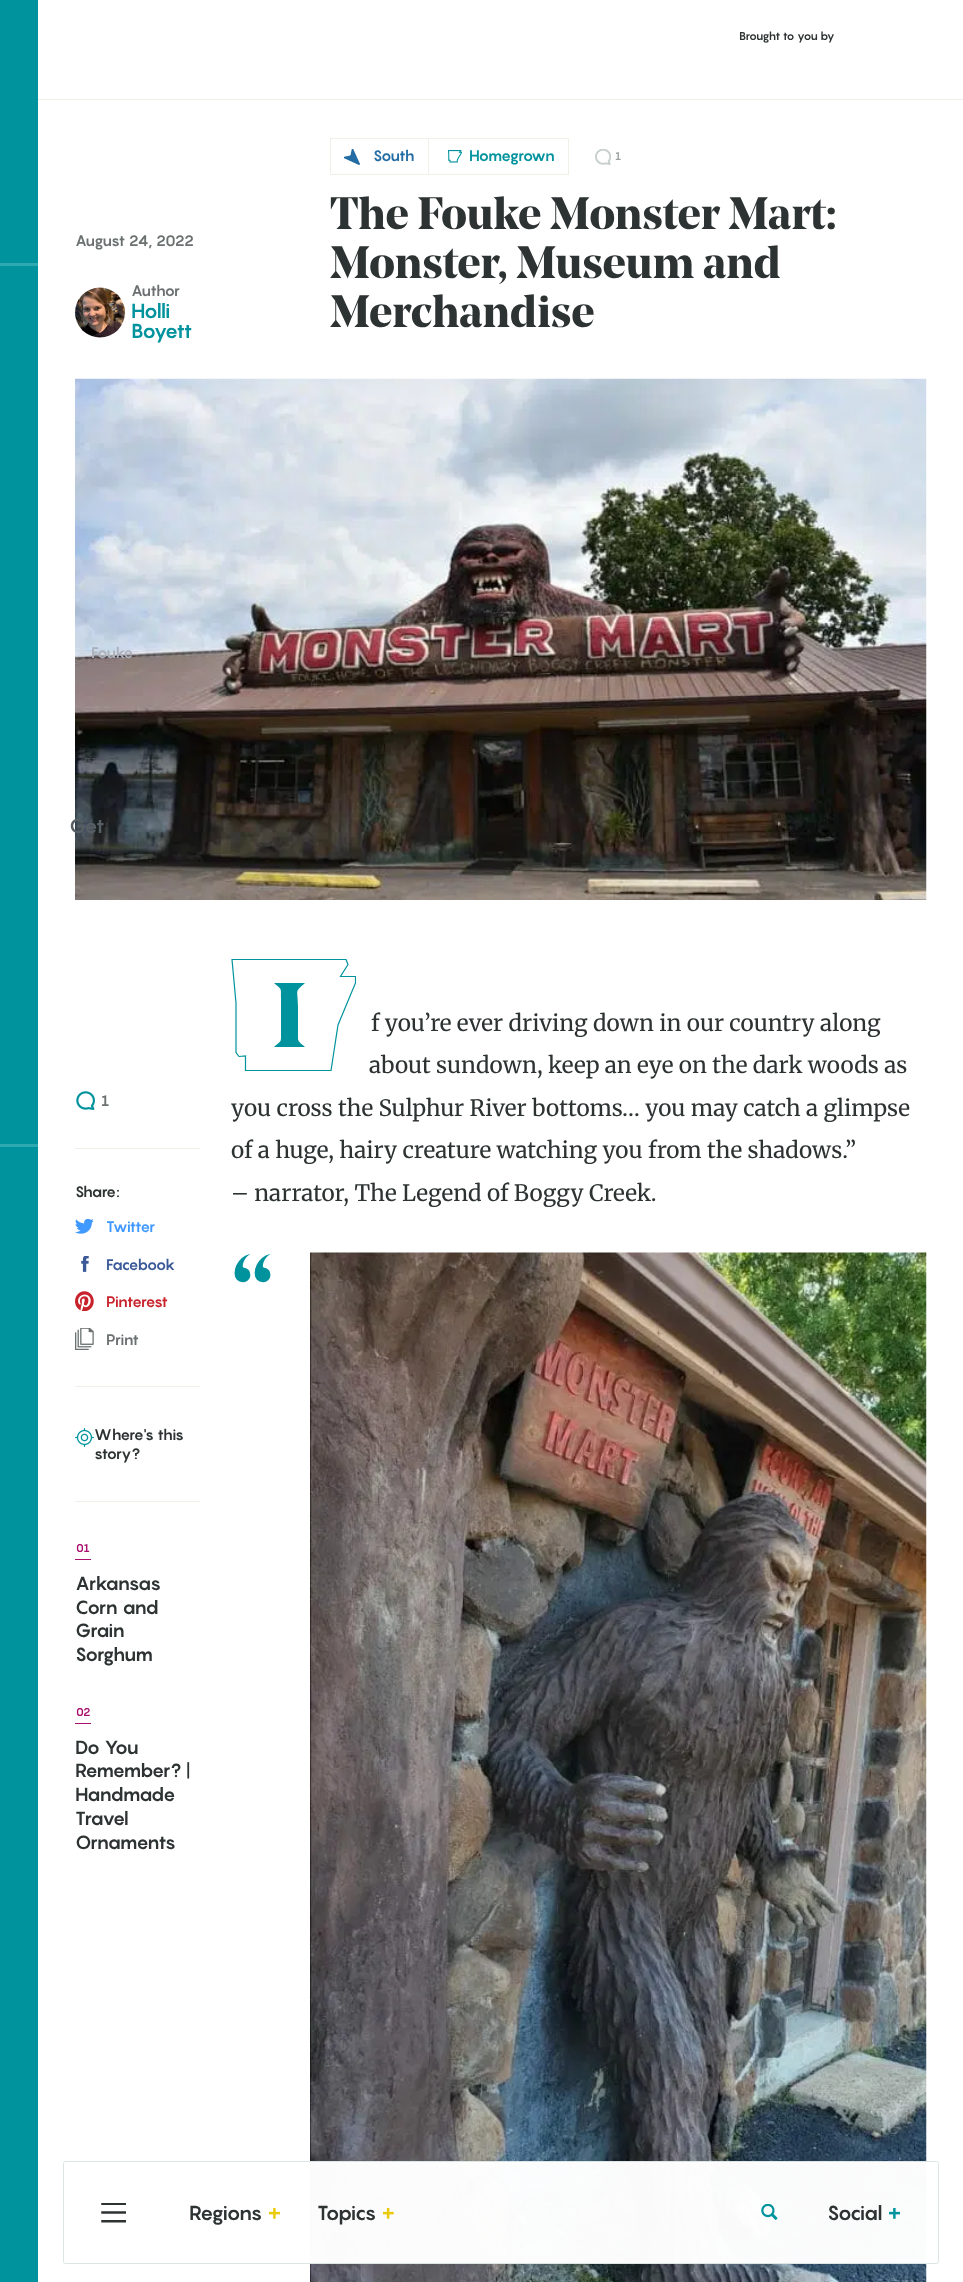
async function draw(canvas) {
  canvas.width = 963;
  canvas.height = 2282;
  const ctx = canvas.getContext('2d');
  ctx.miterLimit = 4;
  ctx.fontKerning = 'normal';
  function label(s, x, y, font, color) {
    ctx.font = font;
    ctx.fillStyle = color;
    ctx.fillText(s, x, y);
  }
  function rect(x, y, w, h, color) {
    ctx.fillStyle = color;
    ctx.fillRect(x, y, w, h);
  }
  async function image(src, x, y, w, h) {
    const img = new Image();
    img.src = src;
    await img.decode();
    ctx.drawImage(img, x, y, w, h);
  }
  let path;

  rect(0, 0, 963, 2282, '#00939d');
  rect(38, 0, 925, 99, '#fff');
  rect(38, 99, 925, 1, '#f0f0e8');
  label('Brought to you by', 739, 40, 'bold 11.25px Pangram', '#2d3232');
  rect(0, 263, 38, 3, '#2ea9b2');
  rect(0, 1144, 38, 3, '#2ea9b2');
  rect(38, 100, 925, 2182, '#fff');
  label('August 24, 2022', 75, 246, 'bold 15px Pangram', '#6b7171');
  await image('assets/img1.png', 74, 287, 52, 51);
  label('Author', 131, 296, 'bold 15px Pangram', '#6b7171');
  label('Holli', 131, 318, 'bold 20px Pangram', '#00939d');
  label('Boyett', 131, 338, 'bold 20px Pangram', '#00939d');
  await image('assets/img2.png', 344, 149, 16, 16);
  ctx.strokeStyle = '#f0f0e8';
  ctx.strokeRect(330.5, 138.5, 98, 36);
  label('South', 373, 161, 'bold 15px Pangram', '#236ca4');
  await image('assets/img3.png', 448, 150, 15, 13);
  rect(429, 138, 140, 1, '#f0f0e8');
  rect(568, 138, 1, 37, '#f0f0e8');
  rect(429, 174, 140, 1, '#f0f0e8');
  label('Homegrown', 469, 161, 'bold 15px Pangram', '#00939d');
  await image('assets/img4.png', 595, 149, 16, 16);
  label('1', 615, 160, 'bold 11.25px Pangram', '#9ba2a2');
  label('The Fouke Monster Mart:', 330, 229, 'bold 45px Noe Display', '#2d3232');
  label('Monster, Museum and', 330, 278, 'bold 45px Noe Display', '#2d3232');
  label('Merchandise', 330, 327, 'bold 45px Noe Display', '#2d3232');
  await image('assets/img5.png', 75, 378, 852, 522);
  await image('assets/img6.png', 76, 1091, 19, 19);
  label('1', 101, 1106, 'bold 15px Pangram', '#6b7171');
  rect(75, 1148, 125, 1, '#f0f0e8');
  label('Share:', 75, 1197, 'bold 15px Pangram', '#2d3232');
  await image('assets/img7.png', 75, 1219, 19, 15);
  label('Twitter', 106, 1232, 'bold 15px Pangram', '#4099ff');
  await image('assets/img8.png', 81, 1256, 8, 16);
  label('Facebook', 106, 1270, 'bold 15px Pangram', '#3b5998');
  await image('assets/img9.png', 75, 1291, 19, 20);
  label('Pinterest', 106, 1307, 'bold 15px Pangram', '#c8232c');
  await image('assets/img10.png', 75, 1328, 19, 22);
  label('Print', 106, 1345, 'bold 15px Pangram', '#6b7171');
  rect(75, 1386, 125, 1, '#f0f0e8');
  await image('assets/img11.png', 75, 1428, 19, 19);
  label('Where\'s this', 94, 1440, 'bold 15px Pangram', '#2d3232');
  label('story?', 94, 1459, 'bold 15px Pangram', '#2d3232');
  rect(75, 1501, 125, 1, '#f0f0e8');
  rect(75, 1559, 16, 1, '#aa116f');
  label('01', 76, 1552, 'bold 11.25px Pangram', '#aa116f');
  label('Arkansas', 75, 1590, 'bold 18.75px Pangram', '#2d3232');
  label('Corn and', 75, 1614, 'bold 18.75px Pangram', '#2d3232');
  label('Grain', 75, 1637, 'bold 18.75px Pangram', '#2d3232');
  label('Sorghum', 75, 1661, 'bold 18.75px Pangram', '#2d3232');
  rect(75, 1723, 16, 1, '#aa116f');
  label('0', 76, 1716, 'bold 11.25px Pangram', '#aa116f');
  label('2', 83, 1716, 'bold 11.25px Pangram', '#aa116f');
  label('Do You', 75, 1754, 'bold 18.75px Pangram', '#2d3232');
  label('Remember? |', 75, 1777, 'bold 18.75px Pangram', '#2d3232');
  label('Handmade', 75, 1801, 'bold 18.75px Pangram', '#2d3232');
  label('Travel', 75, 1825, 'bold 18.75px Pangram', '#2d3232');
  label('Ornaments', 75, 1849, 'bold 18.75px Pangram', '#2d3232');
  ctx.save();
  ctx.beginPath();
  ctx.rect(231, 959, 125, 112);
  ctx.clip();
  path = new Path2D('M355.5 976.5H340.5L348 964.5L346 959.5H232L236 1003V1052.5L239 1056.5L245.5 1056V1070.5H331L338 1025L355.5 983Z');
  ctx.strokeStyle = '#00939d';
  ctx.lineWidth = 1.2;
  ctx.stroke(path);
  ctx.restore();
  ctx.fillStyle = '#00939d';
  path = new Path2D('M298 1039C298 1042 303 1045 305 1047H274C282 1040 281 1043 281 1031V999C281 987 282 990 274 983H305C294 993 298 988 298 1007Z');
  ctx.fill(path);
  label('f you’re ever driving down in our country along', 371, 1031, '22.5px Merriweather', '#2d3232');
  label('about sundown, keep an eye on the dark woods as', 369, 1073, '22.5px Merriweather', '#2d3232');
  label('you cross the Sulphur River bottoms… you may catch a glimpse', 231, 1116, '22.5px Merriweather', '#2d3232');
  label('of a huge, hairy creature watching you from the shadows.”', 231, 1158, '22.5px Merriweather', '#2d3232');
  label('– narrator, The Legend of Boggy Creek.', 231, 1201, '22.5px Merriweather', '#2d3232');
  label('“', 231, 1332, 'bold 108px Noe Display', '#00939d');
  await image('assets/img12.png', 310, 1252, 617, 1030);
  label('Fouke', 91, 658, 'bold 15px Pangram', '#acb0ba');
  label('Get', 69, 833, 'bold 20px Pangram', '#575e64');
  ctx.fillStyle = '#fffffffa';
  ctx.beginPath();
  ctx.roundRect(63.5, 2161.5, 875, 102, 2);
  ctx.fill();
  ctx.strokeStyle = '#dce5e5';
  ctx.stroke();
  await image('assets/img13.png', 101, 2203, 25, 20);
  label('Regions', 189, 2220, 'bold 20px Pangram', '#2d3232');
  await image('assets/img14.png', 269, 2208, 11, 11);
  label('Topics', 317, 2220, 'bold 20px Pangram', '#2d3232');
  await image('assets/img15.png', 383, 2208, 11, 11);
  await image('assets/img16.png', 761, 2204, 17, 16);
  label('Social', 827, 2220, 'bold 20px Pangram', '#2d3232');
  await image('assets/img17.png', 889, 2208, 11, 11);
}

draw(document.querySelector('canvas'));
